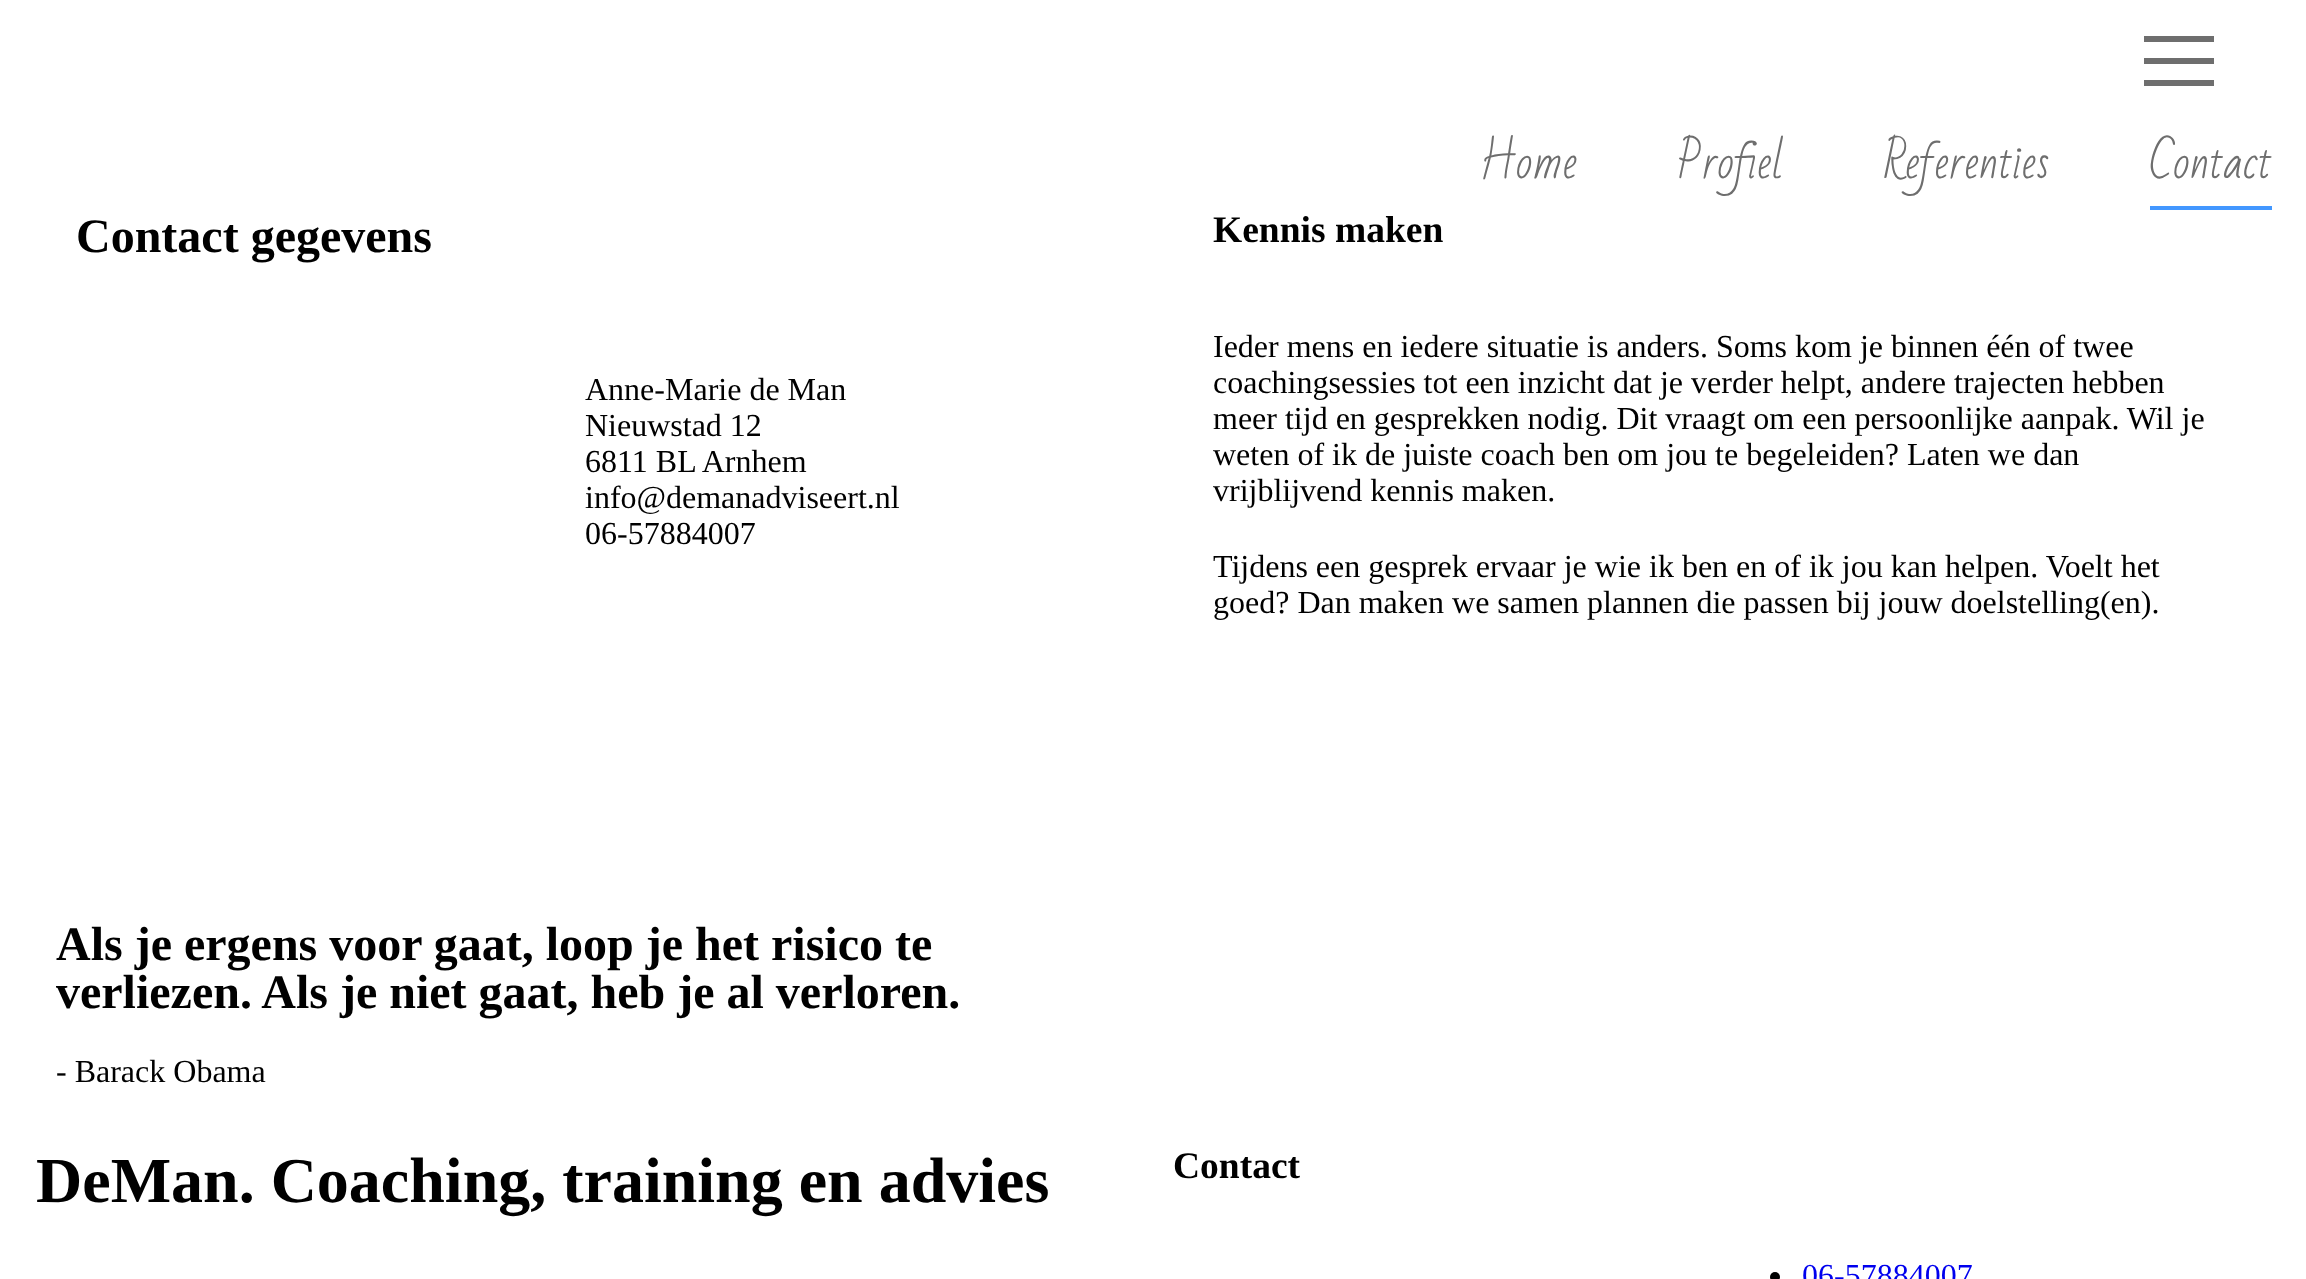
async function draw(canvas) {
  canvas.width = 2306;
  canvas.height = 1279;
  const ctx = canvas.getContext('2d');
  ctx.miterLimit = 4;
  ctx.fontKerning = 'normal';
  function label(s, x, y, font, color) {
    ctx.font = font;
    ctx.fillStyle = color;
    ctx.fillText(s, x, y);
  }
  function rect(x, y, w, h, color) {
    ctx.fillStyle = color;
    ctx.fillRect(x, y, w, h);
  }

  rect(0, 0, 2306, 1279, '#fff');
  rect(2144, 36, 70, 6, '#6e6e6e');
  rect(2144, 58, 70, 6, '#6e6e6e');
  rect(2144, 80, 70, 6, '#6e6e6e');
  label('Home', 1479, 178, '44px Bad Script', '#6e6e6e');
  label('Profiel', 1677, 178, '44px Bad Script', '#6e6e6e');
  label('Referenties', 1883, 178, '44px Bad Script', '#6e6e6e');
  rect(2150, 206, 122, 4, '#4297ff');
  label('Contact', 2149, 178, '44px Bad Script', '#6e6e6e');
  label('Contact gegevens', 76, 252, 'bold 48px Liberation Serif', '#000');
  label('Anne-Marie de Man', 585, 400, '32px Liberation Serif', '#000');
  label('Nieuwstad 12', 585, 436, '32px Liberation Serif', '#000');
  label('6811 BL Arnhem', 585, 472, '32px Liberation Serif', '#000');
  label('info@demanadviseert.nl', 585, 508, '32px Liberation Serif', '#000');
  label('06-57884007', 585, 544, '32px Liberation Serif', '#000');
  label('Kennis maken', 1213, 242, 'bold 37.5px Liberation Serif', '#000');
  label('Ieder mens en iedere situatie is anders. Soms kom je binnen één of twee', 1213, 357, '32px Liberation Serif', '#000');
  label('coachingsessies tot een inzicht dat je verder helpt, andere trajecten hebben', 1213, 393, '32px Liberation Serif', '#000');
  label('meer tijd en gesprekken nodig. Dit vraagt om een persoonlijke aanpak. Wil je', 1213, 429, '32px Liberation Serif', '#000');
  label('weten of ik de juiste coach ben om jou te begeleiden? Laten we dan', 1213, 465, '32px Liberation Serif', '#000');
  label('vrijblijvend kennis maken.', 1213, 501, '32px Liberation Serif', '#000');
  label('Tijdens een gesprek ervaar je wie ik ben en of ik jou kan helpen. Voelt het', 1213, 577, '32px Liberation Serif', '#000');
  label('goed? Dan maken we samen plannen die passen bij jouw doelstelling(en).', 1213, 613, '32px Liberation Serif', '#000');
  label('Als je ergens voor gaat, loop je het risico te', 56, 960, 'bold 48px Liberation Serif', '#000');
  label('verliezen. Als je niet gaat, heb je al verloren.', 56, 1008, 'bold 48px Liberation Serif', '#000');
  label('- Barack Obama', 56, 1082, '32px Liberation Serif', '#000');
  label('DeMan. Coaching, training en advies', 36, 1202, 'bold 64px Liberation Serif', '#000');
  label('Contact', 1173, 1178, 'bold 37.5px Liberation Serif', '#000');
  ctx.beginPath();
  ctx.arc(1775, 1277, 5, 0, 2 * Math.PI);
  ctx.fill();
  label('06-57884007', 1802, 1286, '32px Liberation Serif', '#00e');
}

draw(document.querySelector('canvas'));
